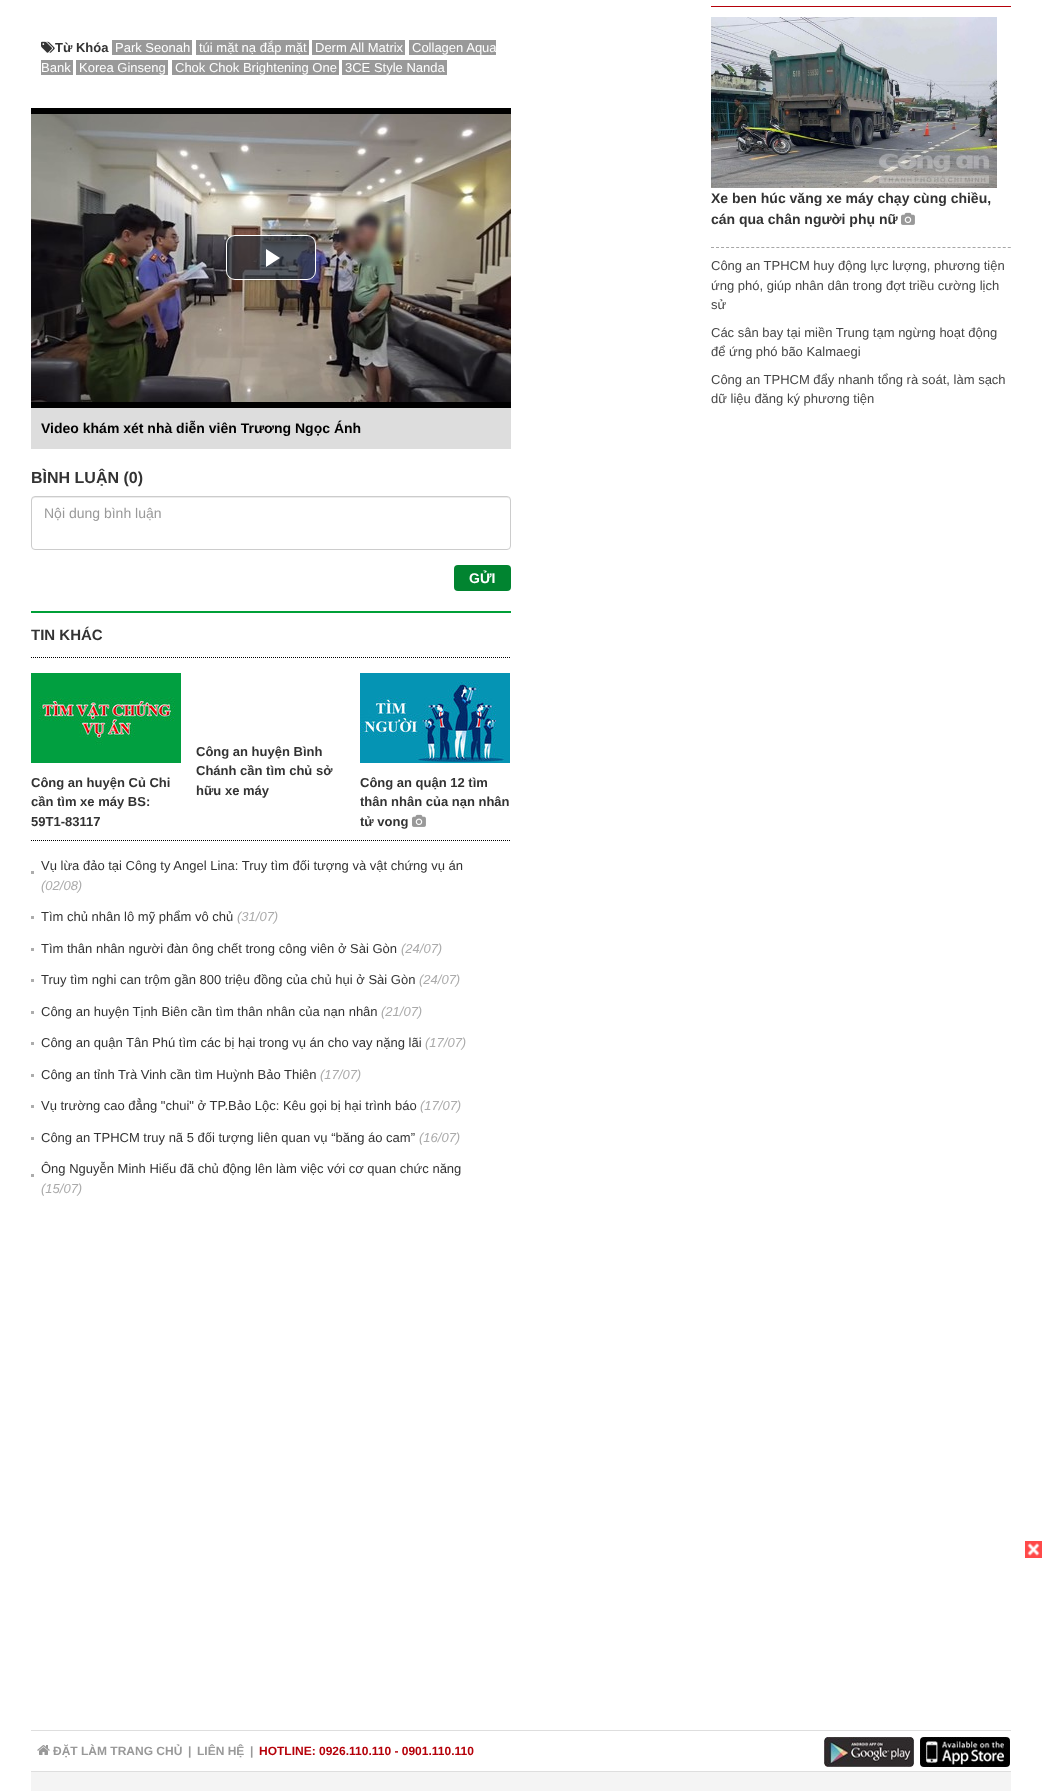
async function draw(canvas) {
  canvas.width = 1042;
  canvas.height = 1791;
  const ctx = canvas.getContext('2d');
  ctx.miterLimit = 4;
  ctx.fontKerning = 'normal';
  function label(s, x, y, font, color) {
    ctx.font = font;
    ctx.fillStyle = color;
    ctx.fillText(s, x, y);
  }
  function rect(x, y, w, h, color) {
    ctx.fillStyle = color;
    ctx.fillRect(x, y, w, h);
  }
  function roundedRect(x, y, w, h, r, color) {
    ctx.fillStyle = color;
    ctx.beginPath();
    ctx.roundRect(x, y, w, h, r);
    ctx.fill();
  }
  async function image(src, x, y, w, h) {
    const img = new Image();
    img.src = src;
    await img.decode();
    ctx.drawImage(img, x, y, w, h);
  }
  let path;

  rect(0, 0, 1042, 1791, '#fff');
  await image('assets/img1.png', 41, 41, 14, 12);
  label('Từ Khóa', 55, 52, 'bold 13px Liberation Sans', '#333');
  rect(112, 40, 80, 15, '#999');
  label('Park Seonah', 115, 52, '13px Liberation Sans', '#fff');
  rect(196, 40, 113, 15, '#999');
  label('túi mặt nạ đắp mặt', 199, 52, '13px Liberation Sans', '#fff');
  rect(312, 40, 93, 15, '#999');
  label('Derm All Matrix', 315, 52, '13px Liberation Sans', '#fff');
  rect(409, 40, 87, 15, '#999');
  label('Collagen Aqua', 412, 52, '13px Liberation Sans', '#fff');
  rect(41, 60, 32, 15, '#999');
  label('Bank', 41, 72, '13px Liberation Sans', '#fff');
  rect(76, 60, 92, 15, '#999');
  label('Korea Ginseng', 79, 72, '13px Liberation Sans', '#fff');
  rect(172, 60, 167, 15, '#999');
  label('Chok Chok Brightening One', 175, 72, '13px Liberation Sans', '#fff');
  rect(342, 60, 105, 15, '#999');
  label('3CE Style Nanda', 345, 72, '13px Liberation Sans', '#fff');
  rect(31, 108, 480, 300, '#000');
  await image('assets/img2.png', 31, 114, 480, 288);
  ctx.fillStyle = '#2b333fb3';
  ctx.beginPath();
  ctx.roundRect(226.5, 235.5, 89, 44, 8.5);
  ctx.fill();
  ctx.strokeStyle = '#fff';
  ctx.stroke();
  ctx.fillStyle = '#fff';
  path = new Path2D('M266 249V267L280 258Z');
  ctx.fill(path);
  rect(31, 408, 480, 41, '#ddd');
  label('Video khám xét nhà diễn viên Trương Ngọc Ánh', 41, 433, 'bold 14px Liberation Sans', '#000');
  label('BÌNH LUẬN (0)', 31, 483, 'bold 16px Liberation Sans', '#333');
  ctx.fillStyle = '#ececec';
  path = new Path2D('M35 498H507C509 498 510 499 510 501V499L508 497H34C32 497 32 499 32 501C32 499 33 498 35 498Z');
  ctx.fill(path);
  ctx.beginPath();
  ctx.roundRect(31.5, 496.5, 479, 53, 3.5);
  ctx.strokeStyle = '#ccc';
  ctx.stroke();
  label('Nội dung bình luận', 44, 518, '14px Liberation Sans', '#999');
  roundedRect(454, 565, 57, 26, 4, '#018430');
  label('GỬI', 469, 583, 'bold 14px Liberation Sans', '#fff');
  rect(31, 611, 480, 2, '#00a038');
  path = new Path2D('M31 657.5H511');
  ctx.strokeStyle = '#000';
  ctx.setLineDash([1, 1]);
  ctx.stroke(path);
  label('TIN KHÁC', 31, 640, 'bold 15px Liberation Sans', '#333');
  await image('assets/img3.png', 31, 673, 150, 90);
  label('Công an huyện Củ Chi', 31, 787, 'bold 13px Liberation Sans', '#333');
  label('cần tìm xe máy BS:', 31, 806, 'bold 13px Liberation Sans', '#333');
  label('59T1-83117', 31, 826, 'bold 13px Liberation Sans', '#333');
  label('Công an huyện Bình', 196, 756, 'bold 13px Liberation Sans', '#333');
  label('Chánh cần tìm chủ sở', 196, 775, 'bold 13px Liberation Sans', '#333');
  label('hữu xe máy', 196, 795, 'bold 13px Liberation Sans', '#333');
  await image('assets/img4.png', 360, 673, 150, 90);
  label('Công an quận 12 tìm', 360, 787, 'bold 13px Liberation Sans', '#333');
  label('thân nhân của nạn nhân', 360, 806, 'bold 13px Liberation Sans', '#333');
  label('tử vong', 360, 826, 'bold 13px Liberation Sans', '#333');
  await image('assets/img5.png', 412, 814, 14, 13);
  path = new Path2D('M31 840.5H511');
  ctx.stroke(path);
  rect(31, 871, 3, 3, '#acacac');
  label('Vụ lừa đảo tại Công ty Angel Lina: Truy tìm đối tượng và vật chứng vụ án', 41, 870, '13px Liberation Sans', '#333');
  label('(02/08)', 41, 890, 'italic 13px Liberation Sans', '#aaa');
  rect(31, 916, 3, 3, '#acacac');
  label('Tìm chủ nhân lô mỹ phẩm vô chủ', 41, 921, '13px Liberation Sans', '#333');
  label('(31/07)', 237, 921, 'italic 13px Liberation Sans', '#aaa');
  rect(31, 948, 3, 3, '#acacac');
  label('Tìm thân nhân người đàn ông chết trong công viên ở Sài Gòn', 41, 953, '13px Liberation Sans', '#333');
  label('(24/07)', 401, 953, 'italic 13px Liberation Sans', '#aaa');
  rect(31, 979, 3, 3, '#acacac');
  label('Truy tìm nghi can trộm gần 800 triệu đồng của chủ hụi ở Sài Gòn', 41, 984, '13px Liberation Sans', '#333');
  label('(24/07)', 419, 984, 'italic 13px Liberation Sans', '#aaa');
  rect(31, 1011, 3, 3, '#acacac');
  label('Công an huyện Tịnh Biên cần tìm thân nhân của nạn nhân', 41, 1016, '13px Liberation Sans', '#333');
  label('(21/07)', 381, 1016, 'italic 13px Liberation Sans', '#aaa');
  rect(31, 1042, 3, 3, '#acacac');
  label('Công an quận Tân Phú tìm các bị hại trong vụ án cho vay nặng lãi', 41, 1047, '13px Liberation Sans', '#333');
  label('(17/07)', 425, 1047, 'italic 13px Liberation Sans', '#aaa');
  rect(31, 1074, 3, 3, '#acacac');
  label('Công an tỉnh Trà Vinh cần tìm Huỳnh Bảo Thiên', 41, 1079, '13px Liberation Sans', '#333');
  label('(17/07)', 320, 1079, 'italic 13px Liberation Sans', '#aaa');
  rect(31, 1105, 3, 3, '#acacac');
  label('Vụ trường cao đẳng "chui" ở TP.Bảo Lộc: Kêu gọi bị hại trình báo', 41, 1110, '13px Liberation Sans', '#333');
  label('(17/07)', 420, 1110, 'italic 13px Liberation Sans', '#aaa');
  rect(31, 1137, 3, 3, '#acacac');
  label('Công an TPHCM truy nã 5 đối tượng liên quan vụ “băng áo cam”', 41, 1142, '13px Liberation Sans', '#333');
  label('(16/07)', 419, 1142, 'italic 13px Liberation Sans', '#aaa');
  rect(31, 1174, 3, 3, '#acacac');
  label('Ông Nguyễn Minh Hiếu đã chủ động lên làm việc với cơ quan chức năng', 41, 1173, '13px Liberation Sans', '#333');
  label('(15/07)', 41, 1193, 'italic 13px Liberation Sans', '#aaa');
  rect(711, 6, 300, 1, '#b50009');
  await image('assets/img6.png', 711, 17, 286, 171);
  label('Xe ben húc văng xe máy chạy cùng chiều,', 711, 203, 'bold 14px Liberation Sans', '#333');
  label('cán qua chân người phụ nữ', 711, 224, 'bold 14px Liberation Sans', '#333');
  await image('assets/img5.png', 901, 212, 14, 13);
  path = new Path2D('M711 247.5H1011');
  ctx.strokeStyle = '#a7a7a7';
  ctx.setLineDash([3, 2.03]);
  ctx.stroke(path);
  label('Công an TPHCM huy động lực lượng, phương tiện', 711, 270, '13px Liberation Sans', '#464646');
  label('ứng phó, giúp nhân dân trong đợt triều cường lịch', 711, 290, '13px Liberation Sans', '#464646');
  label('sử', 711, 309, '13px Liberation Sans', '#464646');
  label('Các sân bay tại miền Trung tạm ngừng hoạt động', 711, 337, '13px Liberation Sans', '#464646');
  label('để ứng phó bão Kalmaegi', 711, 356, '13px Liberation Sans', '#464646');
  label('Công an TPHCM đẩy nhanh tổng rà soát, làm sạch', 711, 384, '13px Liberation Sans', '#464646');
  label('dữ liệu đăng ký phương tiện', 711, 403, '13px Liberation Sans', '#464646');
  await image('assets/img7.png', 1025, 1541, 17, 17);
  rect(31, 1730, 980, 1, '#dedede');
  rect(31, 1771, 980, 1, '#dedede');
  await image('assets/img8.png', 37, 1745, 13, 10);
  label('ĐẶT LÀM TRANG CHỦ', 53, 1755, 'bold 12px Liberation Sans', '#999');
  label('|', 188, 1755, 'bold 12px Liberation Sans', '#999');
  label('LIÊN HỆ', 197, 1755, 'bold 12px Liberation Sans', '#999');
  label('|', 250, 1755, 'bold 12px Liberation Sans', '#999');
  label('HOTLINE: 0926.110.110 - 0901.110.110', 259, 1755, 'bold 12px Liberation Sans', '#b50009');
  await image('assets/img9.png', 824, 1737, 90, 30);
  await image('assets/img10.png', 920, 1737, 90, 30);
  rect(31, 1772, 980, 19, '#f4f4f4');
}

draw(document.querySelector('canvas'));
